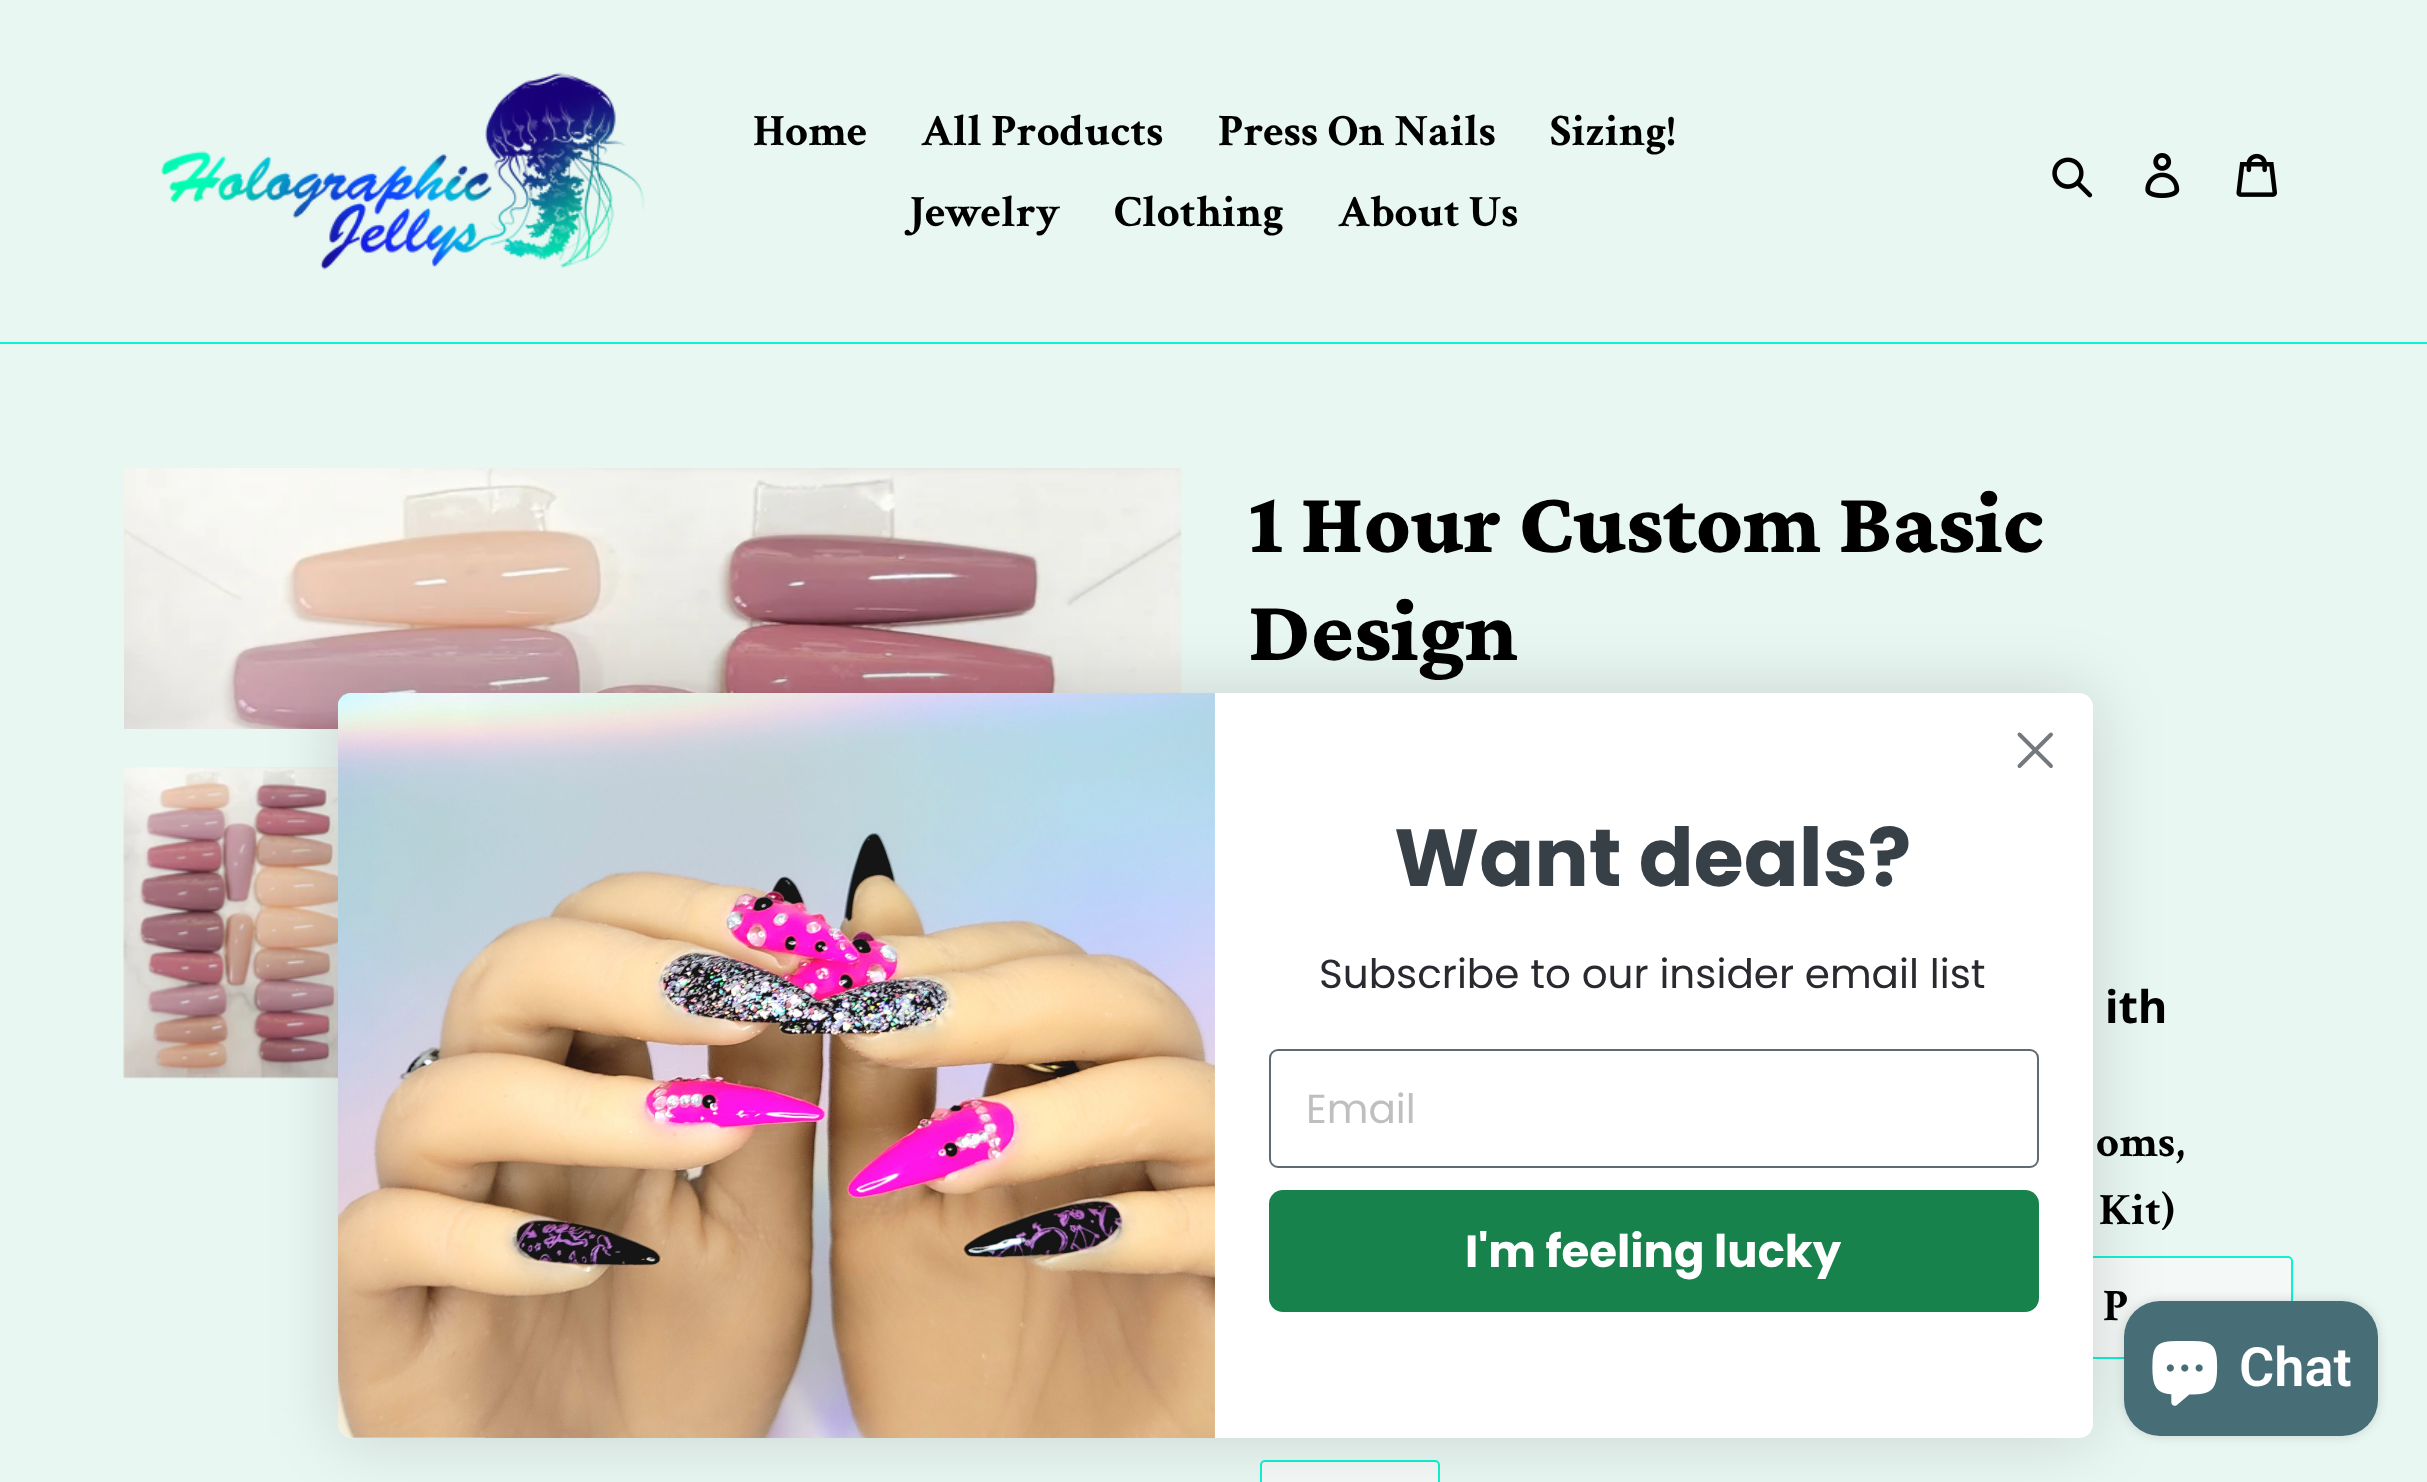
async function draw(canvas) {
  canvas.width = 2427;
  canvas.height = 1482;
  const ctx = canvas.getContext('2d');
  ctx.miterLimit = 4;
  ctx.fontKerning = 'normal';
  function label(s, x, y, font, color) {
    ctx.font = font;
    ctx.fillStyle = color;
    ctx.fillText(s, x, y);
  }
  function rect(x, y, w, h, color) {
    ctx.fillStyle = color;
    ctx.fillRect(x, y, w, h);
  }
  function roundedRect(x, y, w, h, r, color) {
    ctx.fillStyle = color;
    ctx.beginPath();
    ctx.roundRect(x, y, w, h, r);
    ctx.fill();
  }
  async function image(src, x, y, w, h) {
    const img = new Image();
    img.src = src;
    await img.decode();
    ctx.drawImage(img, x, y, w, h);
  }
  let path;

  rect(0, 0, 2427, 1482, '#e9f7f3');
  rect(0, 342, 2427, 2, '#0ff2d1');
  await image('assets/img1.png', 161, 72, 484, 198);
  label('Home', 753, 145, 'bold 45px Crimson Text', '#000');
  label('All Products', 921, 145, 'bold 45px Crimson Text', '#000');
  label('Press On Nails', 1218, 145, 'bold 45px Crimson Text', '#000');
  label('Sizing!', 1550, 145, 'bold 45px Crimson Text', '#000');
  label('Jewelry', 909, 226, 'bold 45px Crimson Text', '#000');
  label('Clothing', 1114, 226, 'bold 45px Crimson Text', '#000');
  label('About Us', 1338, 226, 'bold 45px Crimson Text', '#000');
  await image('assets/img2.png', 2052, 157, 41, 41);
  await image('assets/img3.png', 2145, 153, 35, 45);
  await image('assets/img4.png', 2236, 153, 41, 44);
  await image('assets/img5.png', 124, 468, 1058, 261);
  await image('assets/img6.png', 123, 767, 215, 312);
  label('1 Hour Custom Basic', 1248, 552, '800 90px Crimson Pro', '#000');
  label('Design', 1248, 660, '800 90px Crimson Pro', '#000');
  label('ith', 2105, 1023, 'bold 45px Noto Sans', '#000');
  label('oms,', 2096, 1156, 'bold 45px Crimson Text', '#000');
  label('Kit)', 2099, 1224, 'bold 45px Crimson Text', '#000');
  ctx.fillStyle = '#f4f9f7';
  ctx.beginPath();
  ctx.roundRect(1788, 1257, 504, 101, 4);
  ctx.fill();
  ctx.strokeStyle = '#0ff2d1';
  ctx.lineWidth = 2;
  ctx.stroke();
  label('P', 2103, 1320, 'bold 45px Crimson Text', '#000');
  ctx.fillStyle = '#f4f9f7';
  ctx.beginPath();
  ctx.roundRect(1261, 1461, 178, 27, 4);
  ctx.fill();
  ctx.stroke();
  ctx.fillStyle = '#00000026';
  ctx.filter = 'blur(34px)';
  ctx.beginPath();
  ctx.roundRect(338, 693, 1755, 745, 14);
  ctx.fill();
  ctx.filter = 'none';
  roundedRect(338, 693, 1755, 745, 14, '#fff');
  path = new Path2D('M2019.5 734.5L2051 766M2019.5 766L2051 734.5Z');
  ctx.strokeStyle = '#73797e';
  ctx.lineWidth = 3.9;
  ctx.lineCap = 'round';
  ctx.lineJoin = 'round';
  ctx.stroke(path);
  await image('assets/img7.png', 338, 693, 877, 745);
  label('Want deals?', 1394, 886, 'bold 81px Poppins', '#373f47');
  label('Subscribe to our insider email list', 1319, 988, '40.5px Poppins', '#2b2830');
  ctx.beginPath();
  ctx.roundRect(1270, 1050, 768, 117, 8);
  ctx.strokeStyle = '#606a72';
  ctx.lineWidth = 2;
  ctx.lineJoin = 'miter';
  ctx.stroke();
  label('Email', 1306, 1123, '40.5px Poppins', '#bfbfc0');
  roundedRect(1269, 1190, 770, 122, 14, '#17824c');
  label('I\'m feeling lucky', 1465, 1267, 'bold 45px Poppins', '#fff');
  ctx.fillStyle = '#00000026';
  ctx.filter = 'blur(5.5px)';
  ctx.beginPath();
  ctx.roundRect(2124, 1301, 254, 135, 36);
  ctx.fill();
  ctx.filter = 'none';
  roundedRect(2124, 1301, 254, 135, 36, '#476d76');
  await image('assets/img8.png', 2152, 1341, 66, 65);
  label('Chat', 2239, 1386, '600 54px Roboto', '#fff');
}

draw(document.querySelector('canvas'));
